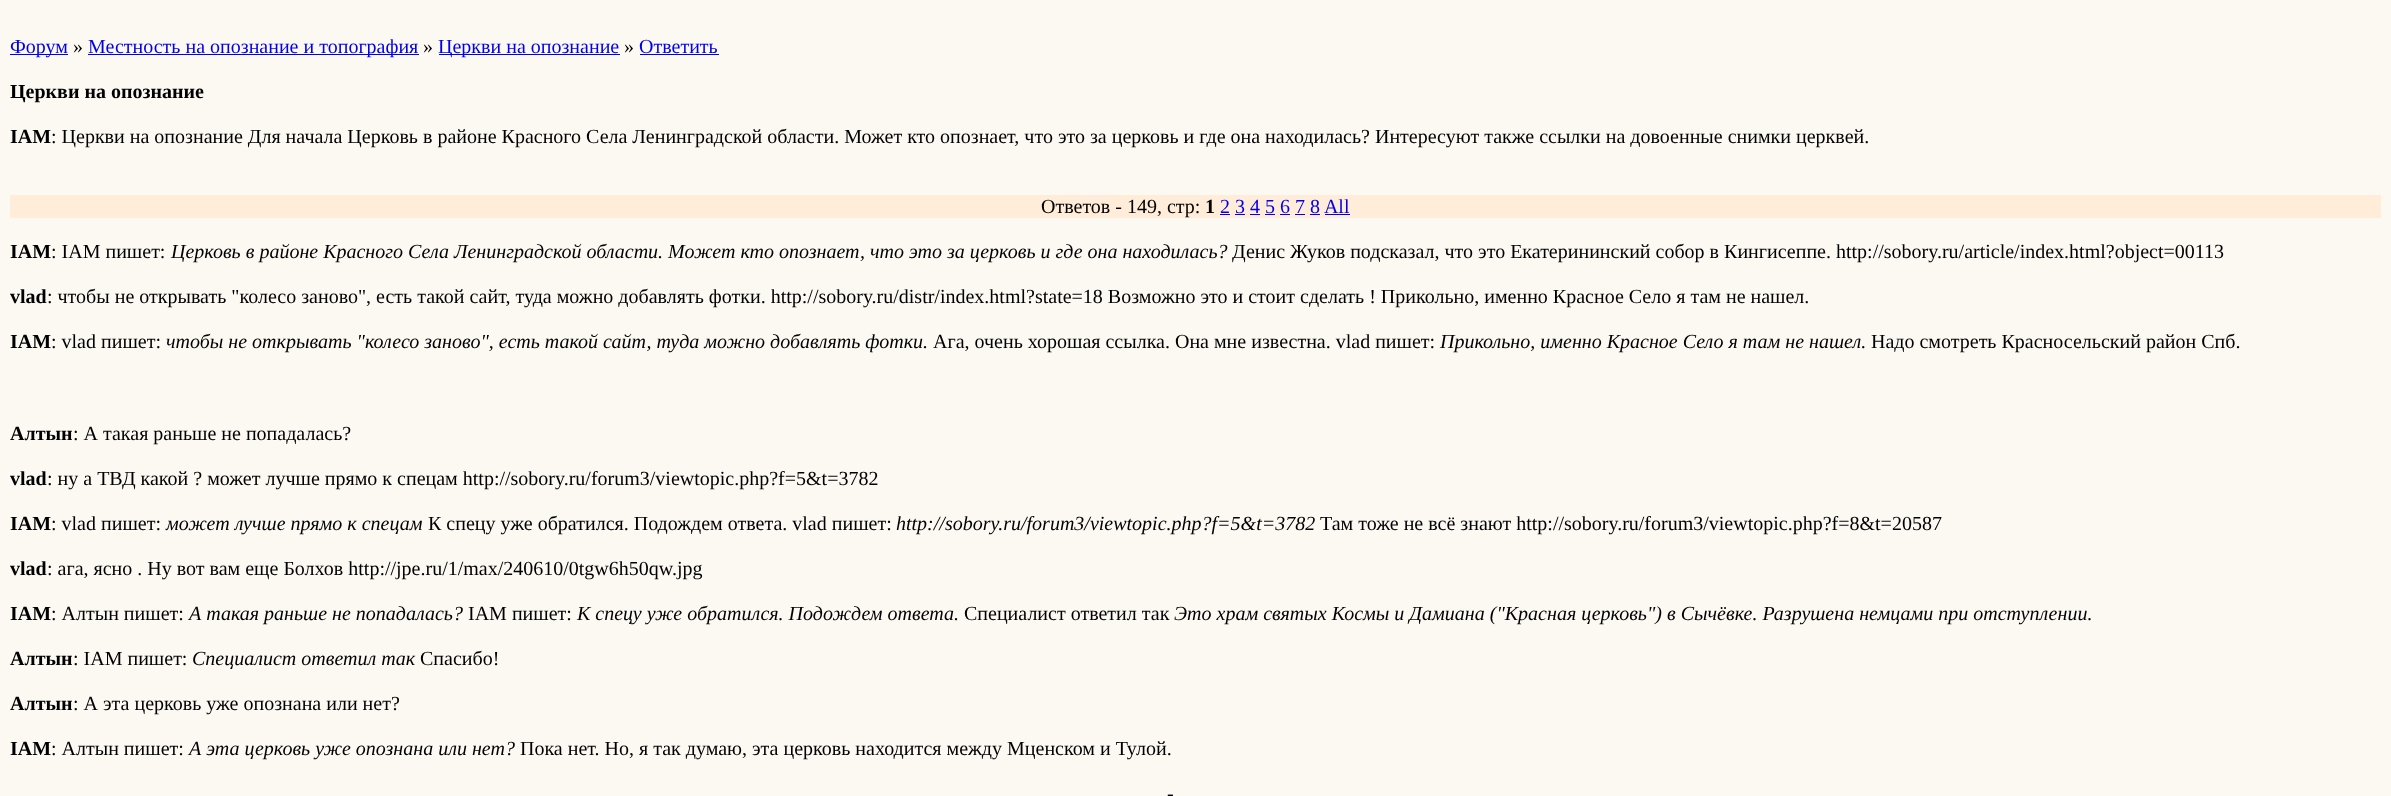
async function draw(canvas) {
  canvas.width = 2391;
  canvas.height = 796;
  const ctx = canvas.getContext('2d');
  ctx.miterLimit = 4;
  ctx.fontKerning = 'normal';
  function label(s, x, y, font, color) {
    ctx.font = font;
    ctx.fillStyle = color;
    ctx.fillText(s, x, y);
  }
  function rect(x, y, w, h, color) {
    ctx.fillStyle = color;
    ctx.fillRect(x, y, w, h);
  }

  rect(0, 0, 2391, 796, '#fcf9f3');
  rect(10, 54, 58, 1, '#00e');
  label('Форум', 10, 53, '20px Liberation Serif', '#00e');
  label('»', 73, 53, '20px Liberation Serif', '#000');
  rect(88, 54, 331, 1, '#00e');
  label('Местность на опознание и топография', 88, 53, '20px Liberation Serif', '#00e');
  label('»', 423, 53, '20px Liberation Serif', '#000');
  rect(439, 54, 181, 1, '#00e');
  label('Церкви на опознание', 438, 53, '20px Liberation Serif', '#00e');
  label('»', 624, 53, '20px Liberation Serif', '#000');
  label('Ответить', 639, 53, '20px Liberation Serif', '#00e');
  rect(640, 54, 79, 1, '#00e');
  label('Церкви на опознание', 10, 98, 'bold 20px Liberation Serif', '#000');
  label('IAM', 10, 143, 'bold 20px Liberation Serif', '#000');
  label(': Церкви на опознание Для начала Церковь в районе Красного Села Ленинградской области. Может кто опознает, что это за церковь и где она находилась? Интересуют также ссылки на довоенные снимки церквей.', 51, 143, '20px Liberation Serif', '#000');
  rect(10, 195, 2371, 23, '#ffecd9');
  label('Ответов - 149, стр:', 1041, 213, '20px Liberation Serif', '#000');
  label('1', 1205, 213, 'bold 20px Liberation Serif', '#000');
  label('2 3 4 5 6 7 8 All', 1220, 213, '20px Liberation Serif', '#00e');
  rect(1220, 214, 10, 1, '#00e');
  rect(1235, 214, 10, 1, '#00e');
  rect(1250, 214, 10, 1, '#00e');
  rect(1265, 214, 10, 1, '#00e');
  rect(1280, 214, 10, 1, '#00e');
  rect(1295, 214, 10, 1, '#00e');
  rect(1310, 214, 10, 1, '#00e');
  rect(1325, 214, 25, 1, '#00e');
  label('IAM', 10, 258, 'bold 20px Liberation Serif', '#000');
  label(': IAM пишет:', 51, 258, '20px Liberation Serif', '#000');
  label('Церковь в районе Красного Села Ленинградской области. Может кто опознает, что это за церковь и где она находилась?', 171, 258, 'italic 20px Liberation Serif', '#000');
  label('Денис Жуков подсказал, что это Екатерининский собор в Кингисеппе. http://sobory.ru/article/index.html?object=00113', 1232, 258, '20px Liberation Serif', '#000');
  label('vlad', 10, 303, 'bold 20px Liberation Serif', '#000');
  label(': чтобы не открывать "колесо заново", есть такой сайт, туда можно добавлять фотки. http://sobory.ru/distr/index.html?state=18 Возможно это и стоит сделать ! Прикольно, именно Красное Село я там не нашел.', 47, 303, '20px Liberation Serif', '#000');
  label('IAM', 10, 348, 'bold 20px Liberation Serif', '#000');
  label(': vlad пишет:', 51, 348, '20px Liberation Serif', '#000');
  label('чтобы не открывать "колесо заново", есть такой сайт, туда можно добавлять фотки.', 166, 348, 'italic 20px Liberation Serif', '#000');
  label('Ага, очень хорошая ссылка. Она мне известна. vlad пишет:', 933, 348, '20px Liberation Serif', '#000');
  label('Прикольно, именно Красное Село я там не нашел.', 1440, 348, 'italic 20px Liberation Serif', '#000');
  label('Надо смотреть Красносельский район Спб.', 1871, 348, '20px Liberation Serif', '#000');
  label('Алтын', 10, 440, 'bold 20px Liberation Serif', '#000');
  label(': А такая раньше не попадалась?', 73, 440, '20px Liberation Serif', '#000');
  label('vlad', 10, 485, 'bold 20px Liberation Serif', '#000');
  label(': ну а ТВД какой ? может лучше прямо к спецам http://sobory.ru/forum3/viewtopic.php?f=5&t=3782', 47, 485, '20px Liberation Serif', '#000');
  label('IAM', 10, 530, 'bold 20px Liberation Serif', '#000');
  label(': vlad пишет:', 51, 530, '20px Liberation Serif', '#000');
  label('может лучше прямо к спецам', 166, 530, 'italic 20px Liberation Serif', '#000');
  label('К спецу уже обратился. Подождем ответа. vlad пишет:', 428, 530, '20px Liberation Serif', '#000');
  label('http://sobory.ru/forum3/viewtopic.php?f=5&t=3782', 896, 530, 'italic 20px Liberation Serif', '#000');
  label('Там тоже не всё знают http://sobory.ru/forum3/viewtopic.php?f=8&t=20587', 1320, 530, '20px Liberation Serif', '#000');
  label('vlad', 10, 575, 'bold 20px Liberation Serif', '#000');
  label(': ага, ясно . Ну вот вам еще Болхов http://jpe.ru/1/max/240610/0tgw6h50qw.jpg', 47, 575, '20px Liberation Serif', '#000');
  label('IAM', 10, 620, 'bold 20px Liberation Serif', '#000');
  label(': Алтын пишет:', 51, 620, '20px Liberation Serif', '#000');
  label('А такая раньше не попадалась?', 189, 620, 'italic 20px Liberation Serif', '#000');
  label('IAM пишет:', 468, 620, '20px Liberation Serif', '#000');
  label('К спецу уже обратился. Подождем ответа.', 577, 620, 'italic 20px Liberation Serif', '#000');
  label('Специалист ответил так', 964, 620, '20px Liberation Serif', '#000');
  label('Это храм святых Космы и Дамиана ("Красная церковь") в Сычёвке. Разрушена немцами при отступлении.', 1174, 620, 'italic 20px Liberation Serif', '#000');
  label('Алтын', 10, 665, 'bold 20px Liberation Serif', '#000');
  label(': IAM пишет:', 73, 665, '20px Liberation Serif', '#000');
  label('Специалист ответил так', 192, 665, 'italic 20px Liberation Serif', '#000');
  label('Спасибо!', 420, 665, '20px Liberation Serif', '#000');
  label('Алтын', 10, 710, 'bold 20px Liberation Serif', '#000');
  label(': А эта церковь уже опознана или нет?', 73, 710, '20px Liberation Serif', '#000');
  label('IAM', 10, 755, 'bold 20px Liberation Serif', '#000');
  label(': Алтын пишет:', 51, 755, '20px Liberation Serif', '#000');
  label('А эта церковь уже опознана или нет?', 189, 755, 'italic 20px Liberation Serif', '#000');
  label('Пока нет. Но, я так думаю, эта церковь находится между Мценском и Тулой.', 520, 755, '20px Liberation Serif', '#000');
  label('-', 1167, 800, '20px Liberation Serif', '#000');
}

draw(document.querySelector('canvas'));
